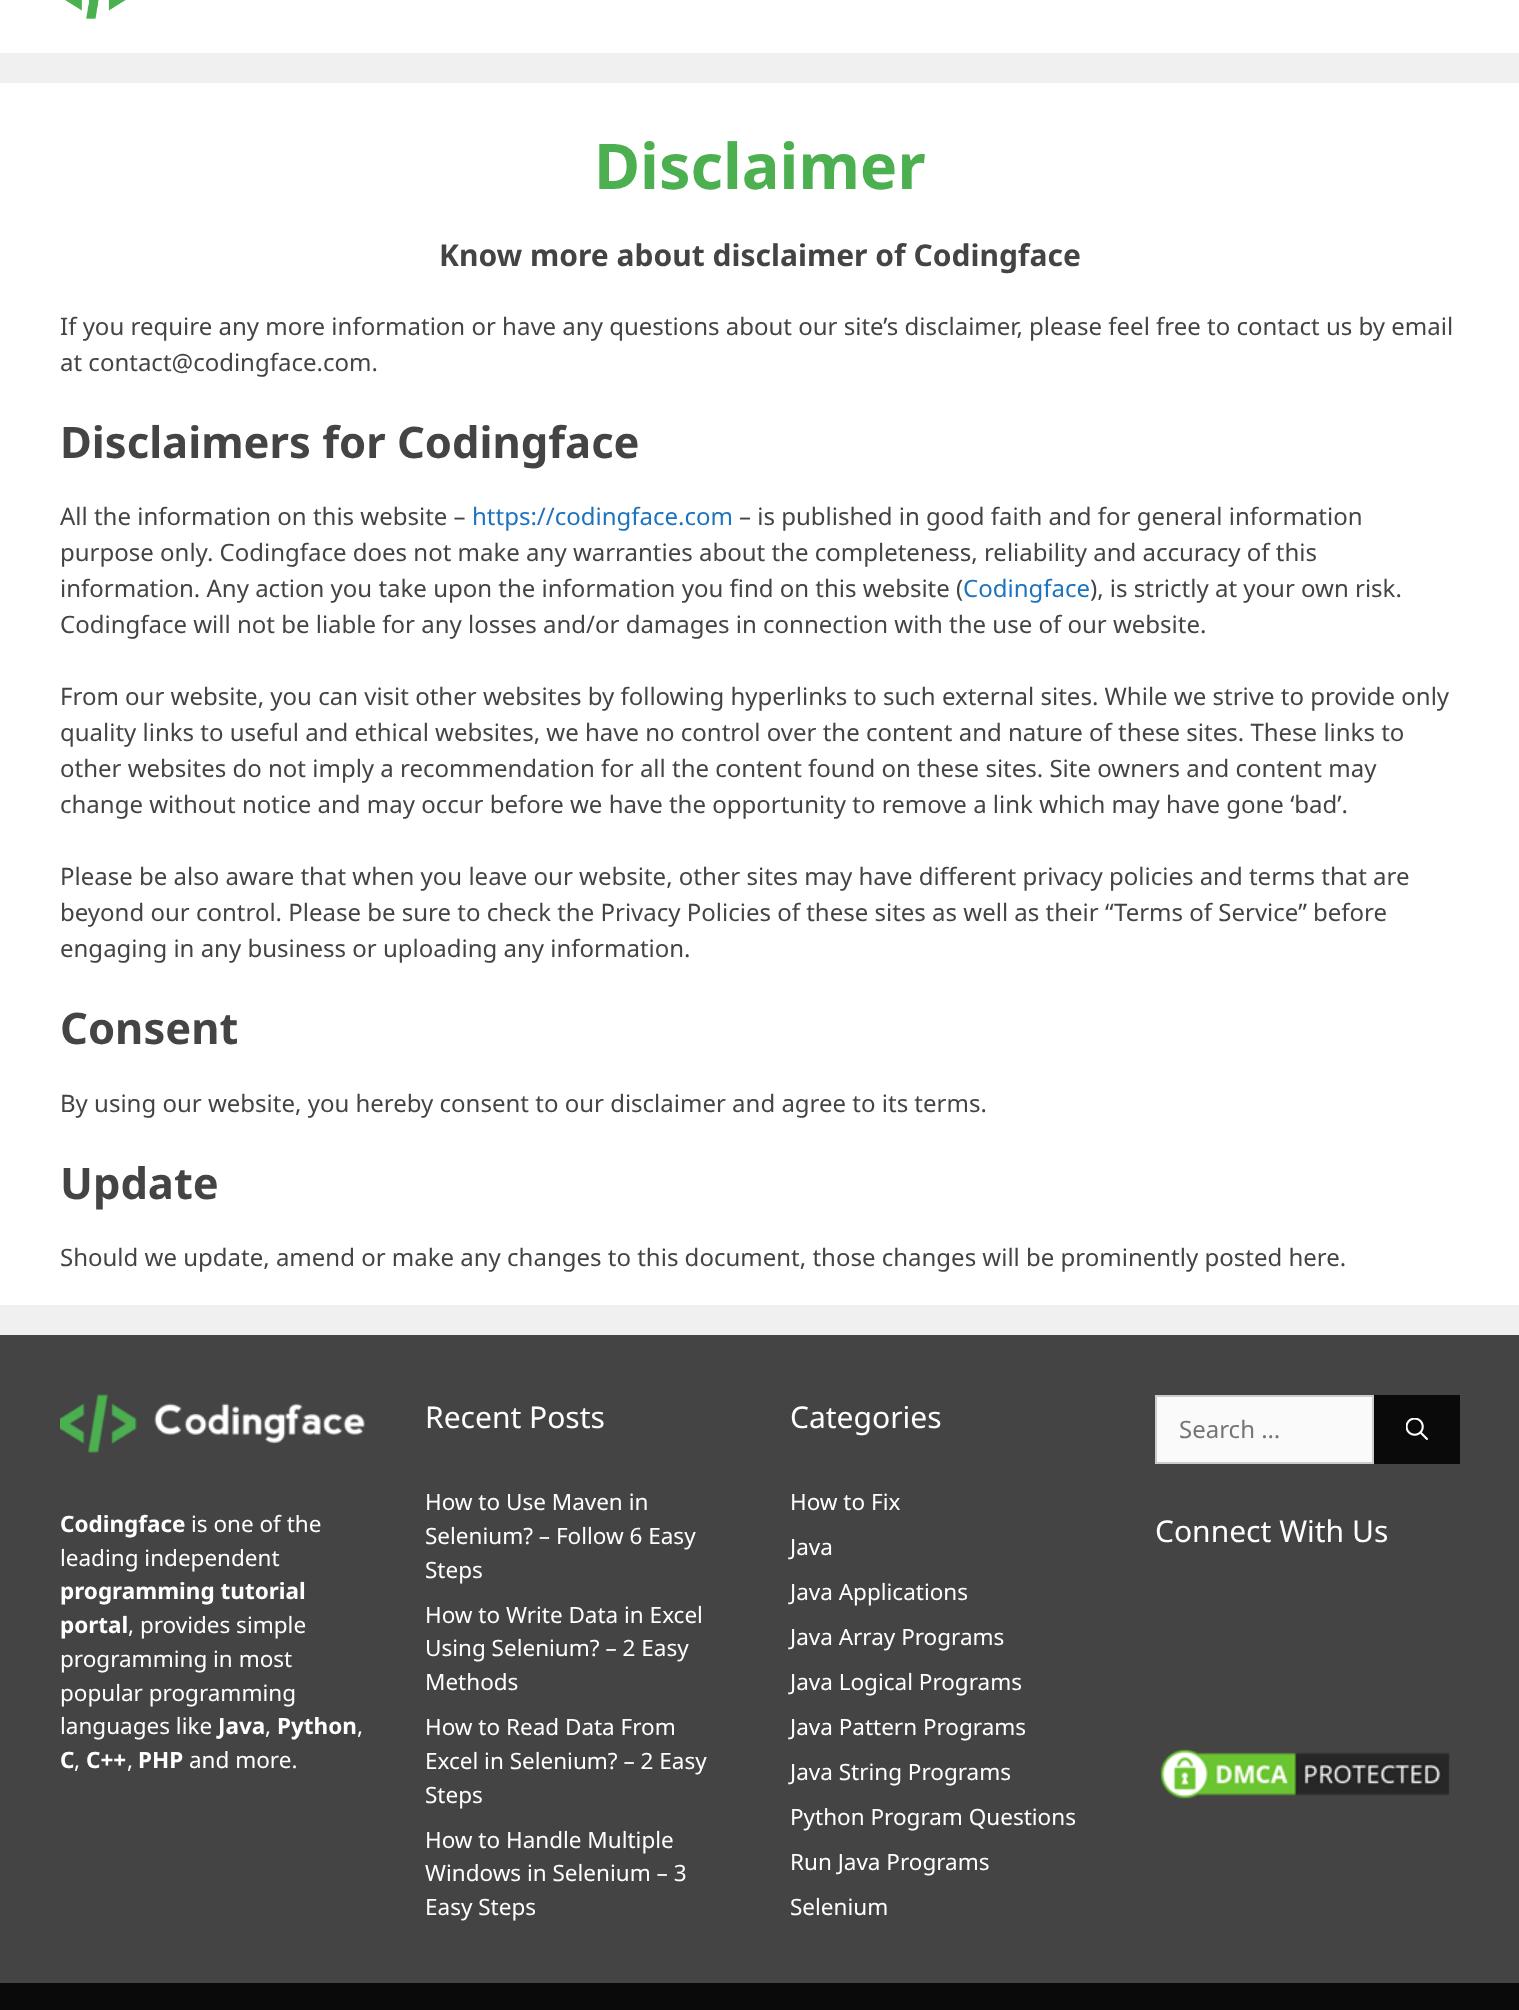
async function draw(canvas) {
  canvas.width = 1519;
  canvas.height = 2010;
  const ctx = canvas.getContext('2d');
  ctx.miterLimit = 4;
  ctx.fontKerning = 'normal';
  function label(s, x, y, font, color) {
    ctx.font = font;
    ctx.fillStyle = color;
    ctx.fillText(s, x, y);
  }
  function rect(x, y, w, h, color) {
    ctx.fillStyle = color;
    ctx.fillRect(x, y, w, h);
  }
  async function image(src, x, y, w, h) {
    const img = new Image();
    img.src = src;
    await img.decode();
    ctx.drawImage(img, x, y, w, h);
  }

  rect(0, 0, 1519, 2010, '#f0f0f0');
  rect(0, 0, 1519, 53, '#fff');
  await image('assets/img1.png', 65, 0, 61, 19);
  rect(0, 83, 1519, 1222, '#fff');
  label('Disclaimer', 594, 189, 'bold 63px Noto Sans', '#4caf50');
  label('Know more about disclaimer of Codingface', 439, 266, 'bold 30px Noto Sans', '#444');
  label('If you require any more information or have any questions about our site’s disclaimer, please feel free to contact us by email', 60, 335, '24px Noto Sans', '#444');
  label('at contact@codingface.com.', 60, 371, '24px Noto Sans', '#444');
  label('Disclaimers for Codingface', 60, 458, 'bold 43.5px Noto Sans', '#444');
  label('All the information on this website –', 60, 525, '24px Noto Sans', '#444');
  label('https://codingface.com', 472, 525, '24px Noto Sans', '#1e73be');
  label('– is published in good faith and for general information', 739, 525, '24px Noto Sans', '#444');
  label('purpose only. Codingface does not make any warranties about the completeness, reliability and accuracy of this', 60, 561, '24px Noto Sans', '#444');
  label('information. Any action you take upon the information you find on this website (', 60, 597, '24px Noto Sans', '#444');
  label('Codingface', 963, 597, '24px Noto Sans', '#1e73be');
  label('), is strictly at your own risk.', 1090, 597, '24px Noto Sans', '#444');
  label('Codingface will not be liable for any losses and/or damages in connection with the use of our website.', 60, 633, '24px Noto Sans', '#444');
  label('From our website, you can visit other websites by following hyperlinks to such external sites. While we strive to provide only', 60, 705, '24px Noto Sans', '#444');
  label('quality links to useful and ethical websites, we have no control over the content and nature of these sites. These links to', 60, 741, '24px Noto Sans', '#444');
  label('other websites do not imply a recommendation for all the content found on these sites. Site owners and content may', 60, 777, '24px Noto Sans', '#444');
  label('change without notice and may occur before we have the opportunity to remove a link which may have gone ‘bad’.', 60, 813, '24px Noto Sans', '#444');
  label('Please be also aware that when you leave our website, other sites may have different privacy policies and terms that are', 60, 885, '24px Noto Sans', '#444');
  label('beyond our control. Please be sure to check the Privacy Policies of these sites as well as their “Terms of Service” before', 60, 921, '24px Noto Sans', '#444');
  label('engaging in any business or uploading any information.', 60, 957, '24px Noto Sans', '#444');
  label('Consent', 60, 1044, 'bold 43.5px Noto Sans', '#444');
  label('By using our website, you hereby consent to our disclaimer and agree to its terms.', 60, 1112, '24px Noto Sans', '#444');
  label('Update', 60, 1199, 'bold 43.5px Noto Sans', '#444');
  label('Should we update, amend or make any changes to this document, those changes will be prominently posted here.', 60, 1266, '24px Noto Sans', '#444');
  rect(0, 1335, 1519, 648, '#444');
  label('Recent Posts', 425, 1428, '30px Noto Sans', '#fff');
  label('How to Use Maven in', 425, 1510, '22.5px Noto Sans', '#fff');
  label('Selenium? – Follow 6 Easy', 425, 1544, '22.5px Noto Sans', '#fff');
  label('Steps', 425, 1578, '22.5px Noto Sans', '#fff');
  label('How to Write Data in Excel', 425, 1623, '22.5px Noto Sans', '#fff');
  label('Using Selenium? – 2 Easy', 425, 1656, '22.5px Noto Sans', '#fff');
  label('Methods', 425, 1690, '22.5px Noto Sans', '#fff');
  label('How to Read Data From', 425, 1735, '22.5px Noto Sans', '#fff');
  label('Excel in Selenium? – 2 Easy', 425, 1769, '22.5px Noto Sans', '#fff');
  label('Steps', 425, 1803, '22.5px Noto Sans', '#fff');
  label('How to Handle Multiple', 425, 1848, '22.5px Noto Sans', '#fff');
  label('Windows in Selenium – 3', 425, 1881, '22.5px Noto Sans', '#fff');
  label('Easy Steps', 425, 1915, '22.5px Noto Sans', '#fff');
  label('Categories', 790, 1428, '30px Noto Sans', '#fff');
  label('How to Fix', 790, 1510, '22.5px Noto Sans', '#fff');
  label('Java', 790, 1555, '22.5px Noto Sans', '#fff');
  label('Java Applications', 790, 1600, '22.5px Noto Sans', '#fff');
  label('Java Array Programs', 790, 1645, '22.5px Noto Sans', '#fff');
  label('Java Logical Programs', 790, 1690, '22.5px Noto Sans', '#fff');
  label('Java Pattern Programs', 790, 1735, '22.5px Noto Sans', '#fff');
  label('Java String Programs', 790, 1780, '22.5px Noto Sans', '#fff');
  label('Python Program Questions', 790, 1825, '22.5px Noto Sans', '#fff');
  label('Run Java Programs', 790, 1870, '22.5px Noto Sans', '#fff');
  label('Selenium', 790, 1915, '22.5px Noto Sans', '#fff');
  ctx.fillStyle = '#fafafa';
  ctx.beginPath();
  ctx.rect(1156, 1396, 217, 67);
  ctx.fill();
  ctx.strokeStyle = '#ccc';
  ctx.lineWidth = 2;
  ctx.stroke();
  label('Search …', 1179, 1438, '24px Noto Sans', '#757575');
  rect(1374, 1395, 86, 69, '#0a0a0a');
  await image('assets/img2.png', 1406, 1418, 22, 22);
  label('Connect With Us', 1155, 1542, '30px Noto Sans', '#fff');
  await image('assets/img3.png', 1160, 1749, 290, 50);
  await image('assets/img4.png', 60, 1394, 305, 59);
  label('Codingface', 60, 1532, 'bold 22.5px Noto Sans', '#fff');
  label('is one of the', 191, 1532, '22.5px Noto Sans', '#fff');
  label('leading independent', 60, 1566, '22.5px Noto Sans', '#fff');
  label('programming tutorial', 60, 1599, 'bold 22.5px Noto Sans', '#fff');
  label('portal', 60, 1633, 'bold 22.5px Noto Sans', '#fff');
  label(', provides simple', 128, 1633, '22.5px Noto Sans', '#fff');
  label('programming in most', 60, 1667, '22.5px Noto Sans', '#fff');
  label('popular programming', 60, 1701, '22.5px Noto Sans', '#fff');
  label('languages like', 60, 1734, '22.5px Noto Sans', '#fff');
  label('Java', 218, 1734, 'bold 22.5px Noto Sans', '#fff');
  label(',', 265, 1734, '22.5px Noto Sans', '#fff');
  label('Python', 277, 1734, 'bold 22.5px Noto Sans', '#fff');
  label(',', 357, 1734, '22.5px Noto Sans', '#fff');
  label('C', 60, 1768, 'bold 22.5px Noto Sans', '#fff');
  label(',', 74, 1768, '22.5px Noto Sans', '#fff');
  label('C++', 86, 1768, 'bold 22.5px Noto Sans', '#fff');
  label(',', 127, 1768, '22.5px Noto Sans', '#fff');
  label('PHP', 138, 1768, 'bold 22.5px Noto Sans', '#fff');
  label('and more.', 189, 1768, '22.5px Noto Sans', '#fff');
  rect(0, 1983, 1519, 27, '#0a0a0a');
}

draw(document.querySelector('canvas'));
